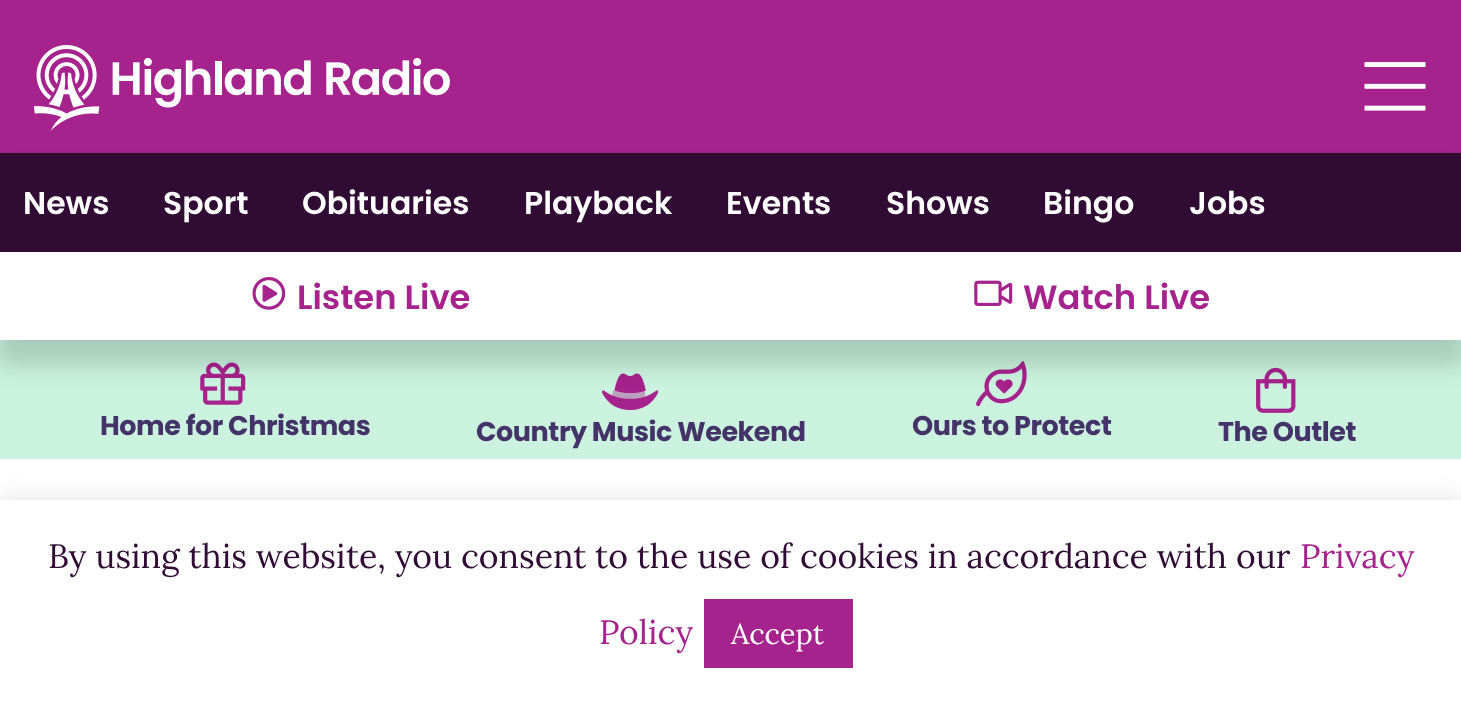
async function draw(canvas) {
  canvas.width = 1461;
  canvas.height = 705;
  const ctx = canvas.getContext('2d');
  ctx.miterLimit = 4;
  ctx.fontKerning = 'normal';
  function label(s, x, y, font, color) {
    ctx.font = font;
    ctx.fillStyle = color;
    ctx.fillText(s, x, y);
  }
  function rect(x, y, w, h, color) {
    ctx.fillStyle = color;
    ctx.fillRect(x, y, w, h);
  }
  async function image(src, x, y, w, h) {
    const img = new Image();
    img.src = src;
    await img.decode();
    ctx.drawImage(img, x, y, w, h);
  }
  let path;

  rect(0, 0, 1461, 705, '#a6228c');
  await image('assets/img1.png', 34, 45, 416, 86);
  await image('assets/img2.png', 1364, 62, 62, 49);
  rect(0, 340, 1461, 119, '#caf2df');
  await image('assets/img5.png', 200, 362, 46, 43);
  await image('assets/img6.png', 602, 373, 57, 38);
  ctx.fillStyle = '#a6228c66';
  path = new Path2D('M645.5 396C635 400 622.5 400 612 396L613 390.5C622.5 394 635.5 394 644.5 390.5Z');
  ctx.fill(path);
  await image('assets/img7.png', 976, 361, 51, 46);
  await image('assets/img8.png', 1256, 367, 40, 46);
  ctx.fillStyle = '#00000029';
  ctx.filter = 'blur(11px)';
  ctx.beginPath();
  ctx.rect(-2, 173, 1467, 192);
  ctx.fill();
  ctx.filter = 'none';
  rect(0, 153, 1461, 99, '#300c35');
  label('News', 23, 214, '600 31.5px Poppins', '#fff');
  label('Sport', 163, 214, '600 31.5px Poppins', '#fff');
  label('Obituaries', 302, 214, '600 31.5px Poppins', '#fff');
  label('Playback', 524, 214, '600 31.5px Poppins', '#fff');
  label('Events', 726, 214, '600 31.5px Poppins', '#fff');
  label('Shows', 886, 214, '600 31.5px Poppins', '#fff');
  label('Bingo', 1043, 214, '600 31.5px Poppins', '#fff');
  label('Jobs', 1189, 214, '600 31.5px Poppins', '#fff');
  rect(0, 252, 1461, 88, '#fff');
  await image('assets/img3.png', 252, 277, 34, 33);
  label('Listen Live', 297, 309, '600 33.75px Poppins', '#a6228c');
  await image('assets/img4.png', 974, 280, 39, 26);
  label('Watch Live', 1023, 309, '600 33.75px Poppins', '#a6228c');
  ctx.letterSpacing = '-0.45px';
  label('Home for Christmas', 100, 435, 'bold 27px Poppins', '#443368');
  label('Country Music Weekend', 476, 441, 'bold 27px Poppins', '#443368');
  label('Ours to Protect', 912, 435, 'bold 27px Poppins', '#443368');
  label('The Outlet', 1218, 441, 'bold 27px Poppins', '#443368');
  rect(0, 459, 1461, 41, '#fff');
  ctx.fillStyle = '#acabab4d';
  ctx.filter = 'blur(11px)';
  ctx.beginPath();
  ctx.rect(0, 497, 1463, 207);
  ctx.fill();
  ctx.filter = 'none';
  rect(0, 500, 1461, 205, '#fff');
  ctx.letterSpacing = '0px';
  label('By using this website, you consent to the use of cookies in accordance with our', 48, 568, '33.75px Lora', '#300c35');
  label('Privacy', 1300, 568, '33.75px Lora', '#a6228c');
  label('Policy', 599, 644, '33.75px Lora', '#a6228c');
  rect(704, 599, 149, 69, '#a6228c');
  label('Accept', 731, 644, '29px Lora', '#fff');
}

draw(document.querySelector('canvas'));
